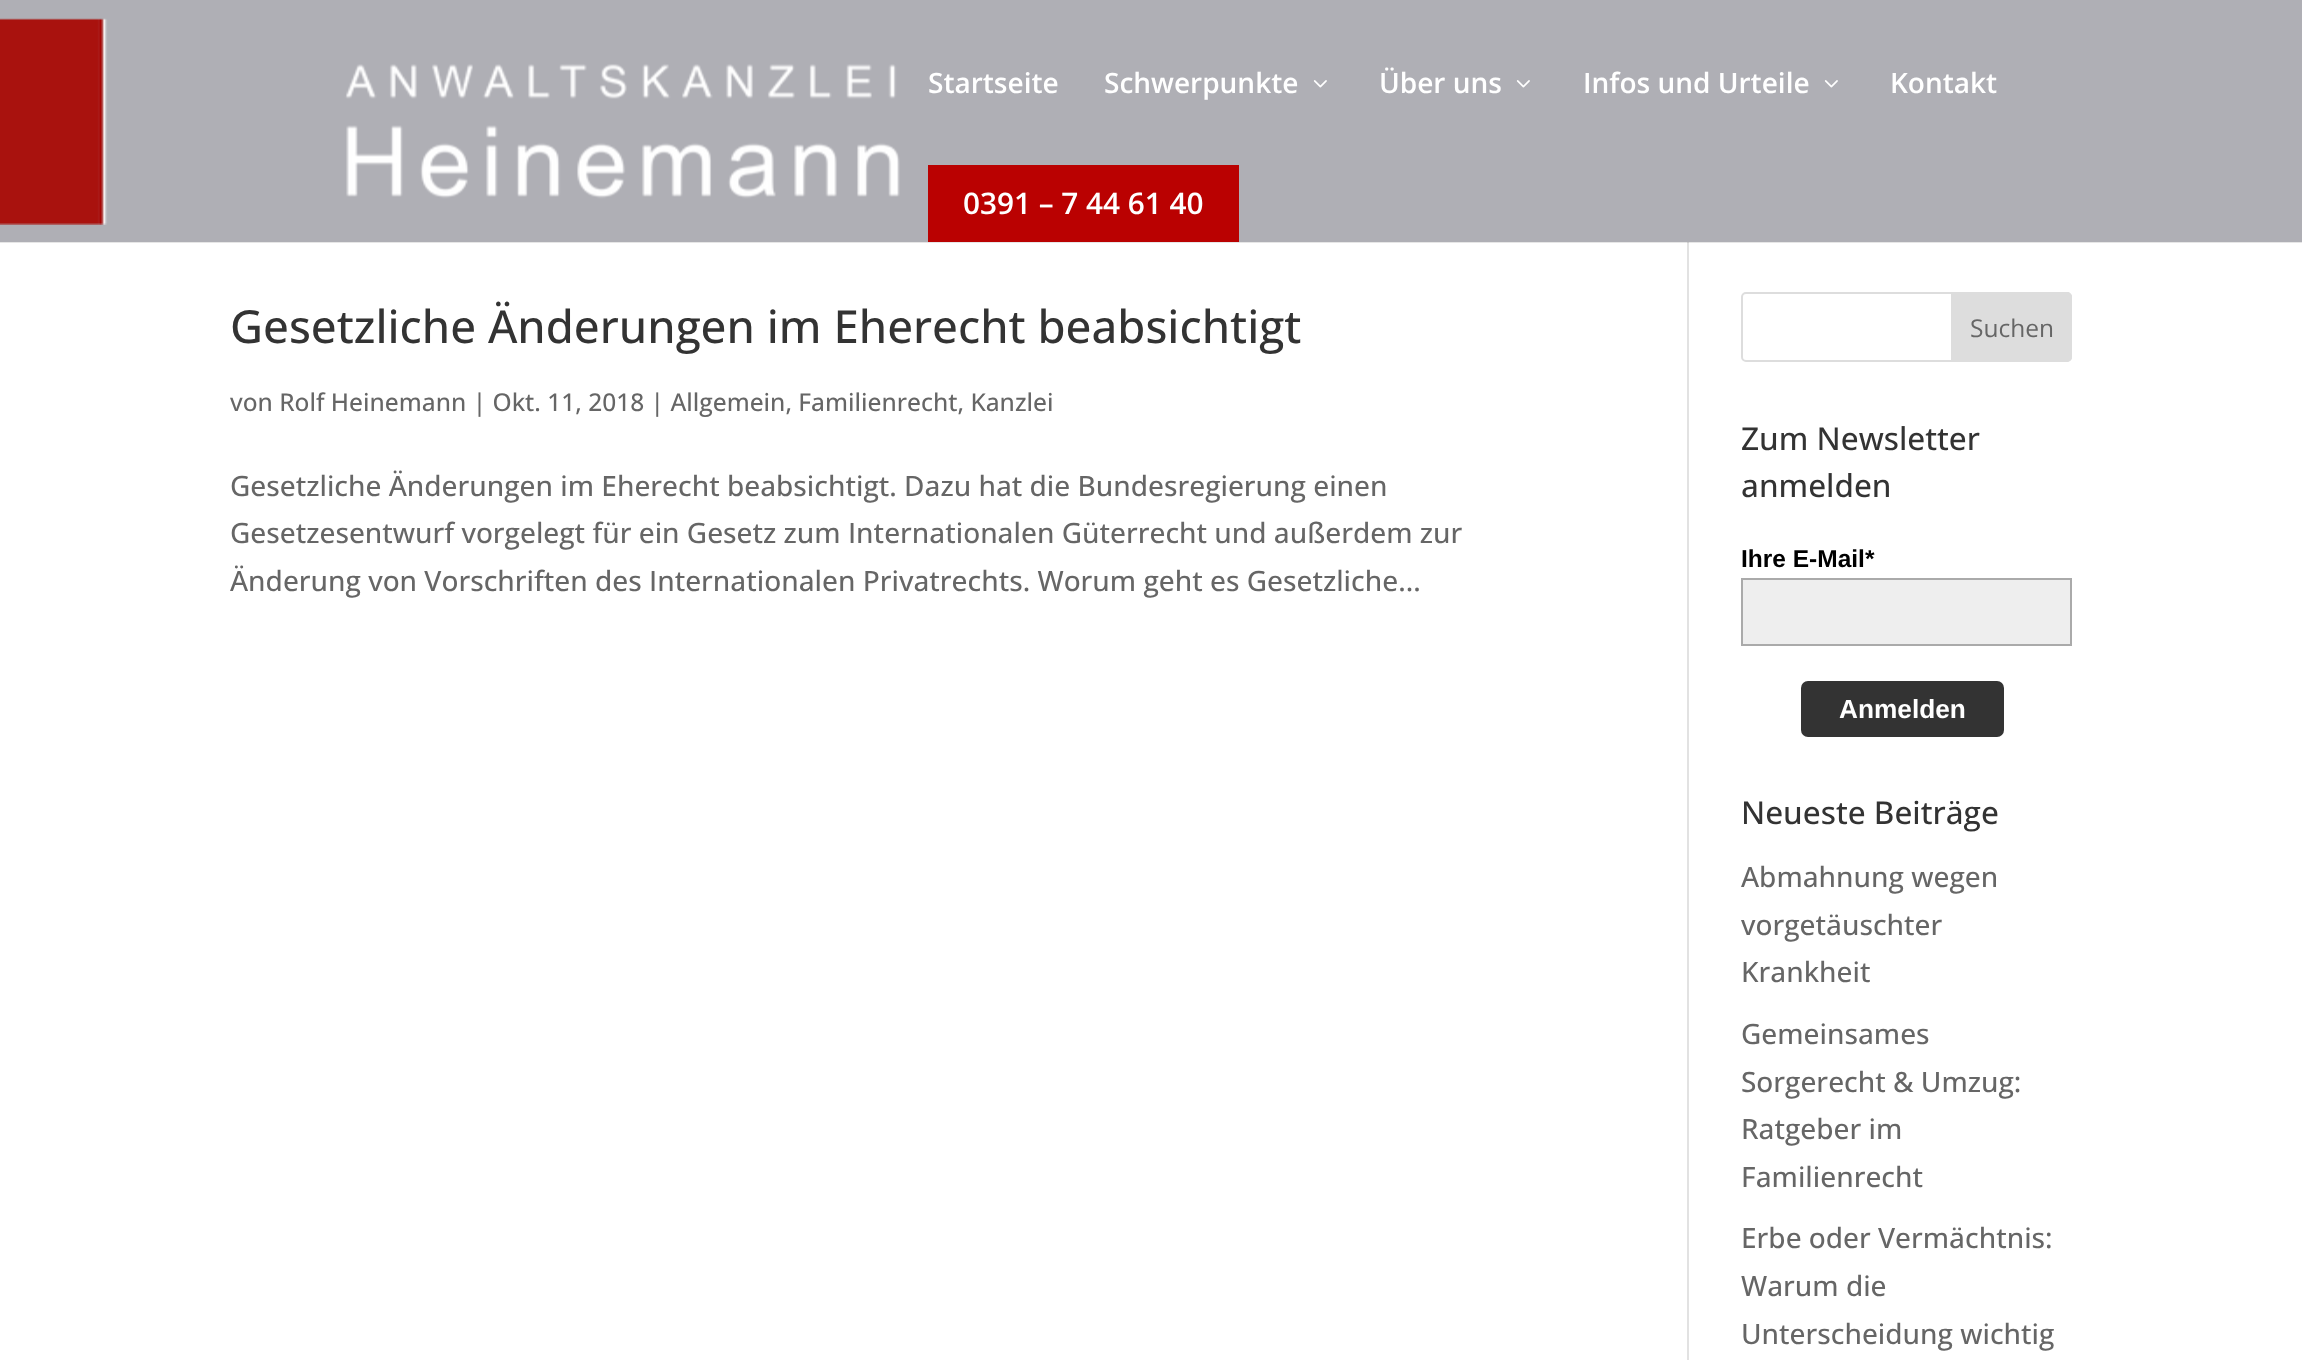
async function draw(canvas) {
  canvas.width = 2302;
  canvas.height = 1360;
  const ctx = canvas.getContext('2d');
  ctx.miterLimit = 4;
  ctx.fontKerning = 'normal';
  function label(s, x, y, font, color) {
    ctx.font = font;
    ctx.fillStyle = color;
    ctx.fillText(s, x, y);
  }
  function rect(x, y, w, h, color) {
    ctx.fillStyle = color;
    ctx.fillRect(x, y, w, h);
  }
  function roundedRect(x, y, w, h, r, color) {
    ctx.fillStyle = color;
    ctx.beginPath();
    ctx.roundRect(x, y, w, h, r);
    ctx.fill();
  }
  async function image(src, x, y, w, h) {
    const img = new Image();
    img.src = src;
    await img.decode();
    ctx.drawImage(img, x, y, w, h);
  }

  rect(0, 0, 2302, 1360, '#fff');
  rect(0, 242, 2302, 1, '#e6e6e6');
  rect(0, 0, 2302, 242, '#afafb5');
  await image('assets/img1.png', 0, 18, 900, 207);
  label('Startseite', 928, 93, '600 28px Open Sans', '#fff');
  label('Schwerpunkte', 1104, 93, '600 28px Open Sans', '#fff');
  await image('assets/img2.png', 1313, 80, 14, 8);
  label('Über uns', 1379, 93, '600 28px Open Sans', '#fff');
  await image('assets/img2.png', 1516, 80, 14, 8);
  label('Infos und Urteile', 1583, 93, '600 28px Open Sans', '#fff');
  await image('assets/img2.png', 1824, 80, 14, 8);
  label('Kontakt', 1890, 93, '600 28px Open Sans', '#fff');
  rect(928, 165, 311, 77, '#ba0101');
  label('0391 – 7 44 61 40', 963, 214, '600 29.75px Open Sans', '#fff');
  rect(1687, 243, 2, 1117, '#e2e2e2');
  rect(1687, 242, 2, 1, '#cbcbcb');
  label('Gesetzliche Änderungen im Eherecht beabsichtigt', 230, 343, '500 45.5px Open Sans', '#333');
  label('von Rolf Heinemann | Okt. 11, 2018 | Allgemein, Familienrecht, Kanzlei', 230, 411, '500 24.5px Open Sans', '#666');
  label('Gesetzliche Änderungen im Eherecht beabsichtigt. Dazu hat die Bundesregierung einen', 230, 496, '500 28px Open Sans', '#666');
  label('Gesetzesentwurf vorgelegt für ein Gesetz zum Internationalen Güterrecht und außerdem zur', 230, 543, '500 28px Open Sans', '#666');
  label('Änderung von Vorschriften des Internationalen Privatrechts. Worum geht es Gesetzliche...', 230, 591, '500 28px Open Sans', '#666');
  ctx.beginPath();
  ctx.roundRect(1742, 293, 329, 68, 4);
  ctx.strokeStyle = '#ddd';
  ctx.lineWidth = 2;
  ctx.stroke();
  ctx.fillStyle = '#ddd';
  ctx.beginPath();
  ctx.roundRect(1952, 293, 119, 68, [0, 4, 4, 0]);
  ctx.fill();
  ctx.stroke();
  label('Suchen', 1970, 337, '24.5px Open Sans', '#666');
  label('Zum Newsletter', 1741, 450, '500 31.5px Open Sans', '#333');
  label('anmelden', 1741, 497, '500 31.5px Open Sans', '#333');
  label('Ihre E-Mail*', 1741, 567, 'bold 24.5px Liberation Sans', '#000');
  ctx.fillStyle = '#eee';
  ctx.beginPath();
  ctx.rect(1742, 579, 329, 66);
  ctx.fill();
  ctx.strokeStyle = '#aaa';
  ctx.stroke();
  roundedRect(1801, 681, 203, 56, 7, '#333');
  label('Anmelden', 1839, 718, 'bold 26.25px Liberation Sans', '#fff');
  label('Neueste Beiträge', 1741, 824, '500 31.5px Open Sans', '#333');
  label('Abmahnung wegen', 1741, 887, '500 28px Open Sans', '#666');
  label('vorgetäuschter', 1741, 935, '500 28px Open Sans', '#666');
  label('Krankheit', 1741, 982, '500 28px Open Sans', '#666');
  label('Gemeinsames', 1741, 1044, '500 28px Open Sans', '#666');
  label('Sorgerecht & Umzug:', 1741, 1092, '500 28px Open Sans', '#666');
  label('Ratgeber im', 1741, 1139, '500 28px Open Sans', '#666');
  label('Familienrecht', 1741, 1187, '500 28px Open Sans', '#666');
  label('Erbe oder Vermächtnis:', 1741, 1248, '500 28px Open Sans', '#666');
  label('Warum die', 1741, 1296, '500 28px Open Sans', '#666');
  label('Unterscheidung wichtig', 1741, 1344, '500 28px Open Sans', '#666');
}

draw(document.querySelector('canvas'));
